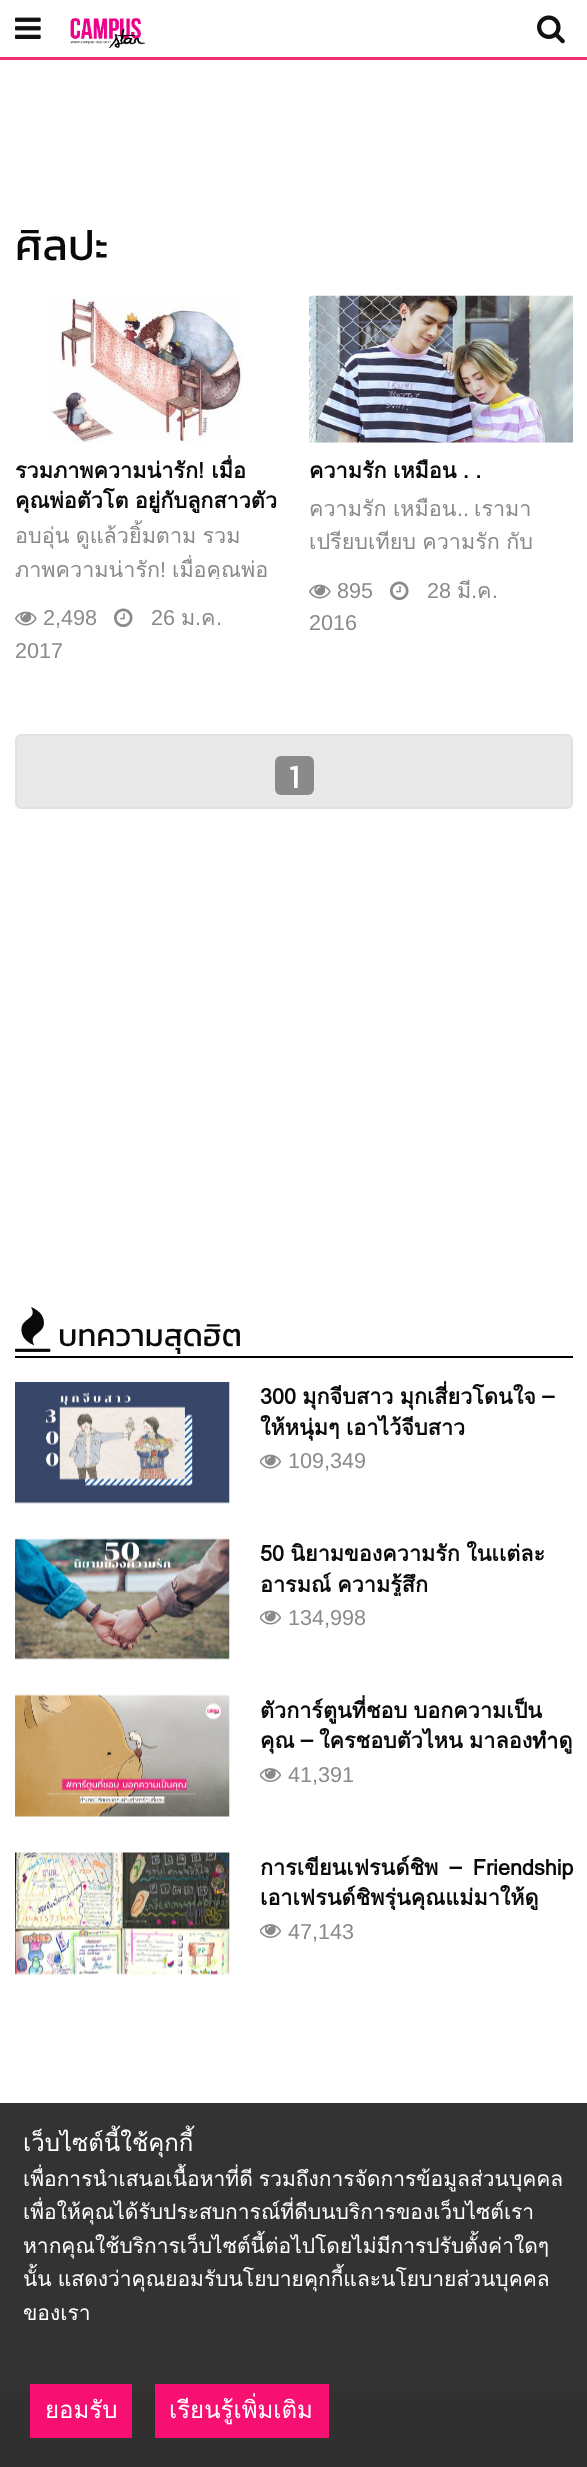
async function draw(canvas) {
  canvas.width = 587;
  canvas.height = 2467;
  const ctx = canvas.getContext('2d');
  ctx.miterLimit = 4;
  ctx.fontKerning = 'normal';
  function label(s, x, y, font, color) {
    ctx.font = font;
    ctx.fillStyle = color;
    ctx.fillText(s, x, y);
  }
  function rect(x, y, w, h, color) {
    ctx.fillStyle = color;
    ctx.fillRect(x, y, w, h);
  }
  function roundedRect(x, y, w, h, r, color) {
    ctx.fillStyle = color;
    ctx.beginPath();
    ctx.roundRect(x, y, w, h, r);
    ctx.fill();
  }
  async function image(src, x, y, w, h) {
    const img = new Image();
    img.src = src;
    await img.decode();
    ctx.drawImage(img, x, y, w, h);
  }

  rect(0, 0, 587, 2467, '#fff');
  rect(0, 2103, 587, 290, '#333');
  rect(0, 57, 587, 3, '#ee2f74');
  await image('assets/img1.png', 15, 17, 26, 22);
  await image('assets/img2.png', 70, 18, 76, 31);
  await image('assets/img3.png', 537, 15, 28, 29);
  label('ศิลปะ', 15, 260, '43px Kanit', '#0a0a0a');
  await image('assets/img4.png', 49, 296, 194, 147);
  label('รวมภาพความน่ารัก! เมื่อ', 15, 478, 'bold 21.6px Loma', '#0a0a0a');
  ctx.save();
  ctx.beginPath();
  ctx.rect(15, 456, 264, 57);
  ctx.clip();
  ctx.wordSpacing = '-1px';
  label('คุณพ่อตัวโต อยู่กับลูกสาวตัว', 15, 508, 'bold 21.6px Loma', '#0a0a0a');
  ctx.restore();
  ctx.wordSpacing = '-1px';
  label('อบอุ่น ดูแล้วยิ้มตาม รวม', 15, 543, '21.6px Loma', '#8a8a8a');
  ctx.wordSpacing = '0px';
  label('ภาพความน่ารัก', 15, 577, '21.6px Loma', '#8a8a8a');
  label('!', 160, 577, '21.6px Liberation Sans', '#8a8a8a');
  ctx.save();
  ctx.beginPath();
  ctx.rect(15, 519, 264, 60);
  ctx.clip();
  label('เมื่อคุณพ่อ', 172, 577, '21.6px Loma', '#8a8a8a');
  ctx.restore();
  await image('assets/img5.png', 114, 608, 19, 19);
  label('26', 151, 625, '21.6px Liberation Sans', '#8a8a8a');
  label('ม', 181, 625, '21.6px Loma', '#8a8a8a');
  label('.', 195, 625, '21.6px Liberation Sans', '#8a8a8a');
  label('ค', 201, 625, '21.6px Loma', '#8a8a8a');
  label('.', 216, 625, '21.6px Liberation Sans', '#8a8a8a');
  label('2017', 15, 658, '21.6px Liberation Sans', '#8a8a8a');
  await image('assets/img6.png', 15, 611, 22, 15);
  label('2,498', 43, 625, '21.6px Liberation Sans', '#8a8a8a');
  await image('assets/img7.png', 309, 295, 264, 148);
  label('ความรัก', 309, 478, 'bold 21.6px Loma', '#0a0a0a');
  ctx.wordSpacing = '-1px';
  label('เหมือน . .', 393, 478, 'bold 21.6px Loma', '#0a0a0a');
  label('ความรัก เหมือน', 309, 516, '21.6px Loma', '#8a8a8a');
  ctx.wordSpacing = '0px';
  label('..', 457, 516, '21.6px Liberation Sans', '#8a8a8a');
  label('เรามา', 474, 516, '21.6px Loma', '#8a8a8a');
  ctx.wordSpacing = '-1px';
  label('เปรียบเทียบ ความรัก กับ', 309, 549, '21.6px Loma', '#8a8a8a');
  await image('assets/img5.png', 390, 581, 19, 19);
  ctx.wordSpacing = '0px';
  label('28', 427, 598, '21.6px Liberation Sans', '#8a8a8a');
  label('มี', 457, 598, '21.6px Loma', '#8a8a8a');
  label('.', 471, 598, '21.6px Liberation Sans', '#8a8a8a');
  label('ค', 477, 598, '21.6px Loma', '#8a8a8a');
  label('.', 492, 598, '21.6px Liberation Sans', '#8a8a8a');
  label('2016', 309, 630, '21.6px Liberation Sans', '#8a8a8a');
  await image('assets/img6.png', 309, 584, 22, 15);
  label('895', 337, 598, '21.6px Liberation Sans', '#8a8a8a');
  ctx.fillStyle = '#e9e9e9';
  ctx.beginPath();
  ctx.roundRect(16, 735, 556, 73, 5);
  ctx.fill();
  ctx.strokeStyle = '#e1e1e1';
  ctx.lineWidth = 2;
  ctx.stroke();
  roundedRect(275, 756, 39, 39, 6, '#8a8a8a');
  label('1', 289, 788, '34px Kanit', '#fff');
  rect(15, 1356, 558, 2, '#000');
  await image('assets/img8.png', 15, 1307, 36, 45);
  label('บทความสุดฮิต', 58, 1346, '31.25px Kanit', '#0a0a0a');
  await image('assets/img9.png', 15, 1382, 215, 122);
  ctx.wordSpacing = '-1px';
  label('300 มุกจีบสาว มุกเสี่ยวโดนใจ –', 260, 1404, 'bold 21.6px Loma', '#0a0a0a');
  label('ให้หนุ่มๆ เอาไว้จีบสาว', 260, 1435, 'bold 21.6px Loma', '#0a0a0a');
  await image('assets/img10.png', 260, 1454, 22, 15);
  ctx.wordSpacing = '0px';
  label('109,349', 288, 1468, '21.6px Liberation Sans', '#8a8a8a');
  await image('assets/img11.png', 15, 1538, 215, 122);
  ctx.wordSpacing = '-1px';
  label('50 นิยามของความรัก ในเเต่ละ', 260, 1561, 'bold 21.6px Loma', '#0a0a0a');
  ctx.save();
  ctx.beginPath();
  ctx.rect(260, 1539, 313, 57);
  ctx.clip();
  label('อารมณ์ ความรู้สึก', 260, 1592, 'bold 21.6px Loma', '#0a0a0a');
  ctx.restore();
  await image('assets/img10.png', 260, 1610, 22, 15);
  ctx.wordSpacing = '0px';
  label('134,998', 288, 1625, '21.6px Liberation Sans', '#8a8a8a');
  await image('assets/img12.png', 15, 1694, 215, 123);
  ctx.save();
  ctx.beginPath();
  ctx.rect(260, 1695, 313, 59);
  ctx.clip();
  ctx.wordSpacing = '-1px';
  label('ตัวการ์ตูนที่ชอบ บอกความเป็น', 260, 1718, 'bold 21.6px Loma', '#0a0a0a');
  label('คุณ – ใครชอบตัวไหน มาลองทำดู', 260, 1748, 'bold 21.6px Loma', '#0a0a0a');
  ctx.restore();
  await image('assets/img13.png', 260, 1768, 21, 14);
  label('41,391', 288, 1782, '21.6px Liberation Sans', '#8a8a8a');
  await image('assets/img14.png', 15, 1852, 215, 123);
  ctx.wordSpacing = '4px';
  label('การเขียนเฟรนด์ชิพ – Friendship', 260, 1875, 'bold 21.6px Loma', '#0a0a0a');
  ctx.save();
  ctx.beginPath();
  ctx.rect(260, 1853, 313, 57);
  ctx.clip();
  ctx.wordSpacing = '0px';
  label('เอาเฟรนด์ชิพรุ่นคุณแม่มาให้ดู', 260, 1905, 'bold 21.6px Loma', '#0a0a0a');
  ctx.restore();
  await image('assets/img13.png', 260, 1924, 21, 14);
  ctx.wordSpacing = '0px';
  label('47,143', 288, 1939, '21.6px Liberation Sans', '#8a8a8a');
  label('เว็บไซต์นี้ใช้คุกกี้', 23, 2151, '24px Loma', '#fff');
  ctx.wordSpacing = '-1px';
  label('เพื่อการนำเสนอเนื้อหาที่ดี รวมถึงการจัดการข้อมูลส่วนบุคคล', 23, 2186, '21px Loma', '#fff');
  ctx.wordSpacing = '0px';
  label('เพื่อให้คุณได้รับประสบการณ์ที่ดีบนบริการของเว็บไซต์เรา', 23, 2219, '21px Loma', '#fff');
  label('หากคุณใช้บริการเว็บไซต์นี้ต่อไปโดยไม่มีการปรับตั้งค่าใดๆ', 23, 2253, '21px Loma', '#fff');
  ctx.wordSpacing = '-1px';
  label('นั้น แสดงว่าคุณยอมรับนโยบายคุกกี้และนโยบายส่วนบุคคล', 23, 2286, '21px Loma', '#fff');
  ctx.wordSpacing = '0px';
  label('ของเรา', 23, 2320, '21px Loma', '#fff');
  rect(0, 2393, 587, 74, '#303030');
  rect(30, 2384, 102, 54, '#f71072');
  label('ยอมรับ', 45, 2418, '24px Loma', '#fff');
  rect(155, 2384, 174, 54, '#f71072');
  label('เรียนรู้เพิ่มเติม', 169, 2418, '24px Loma', '#fff');
}

draw(document.querySelector('canvas'));
